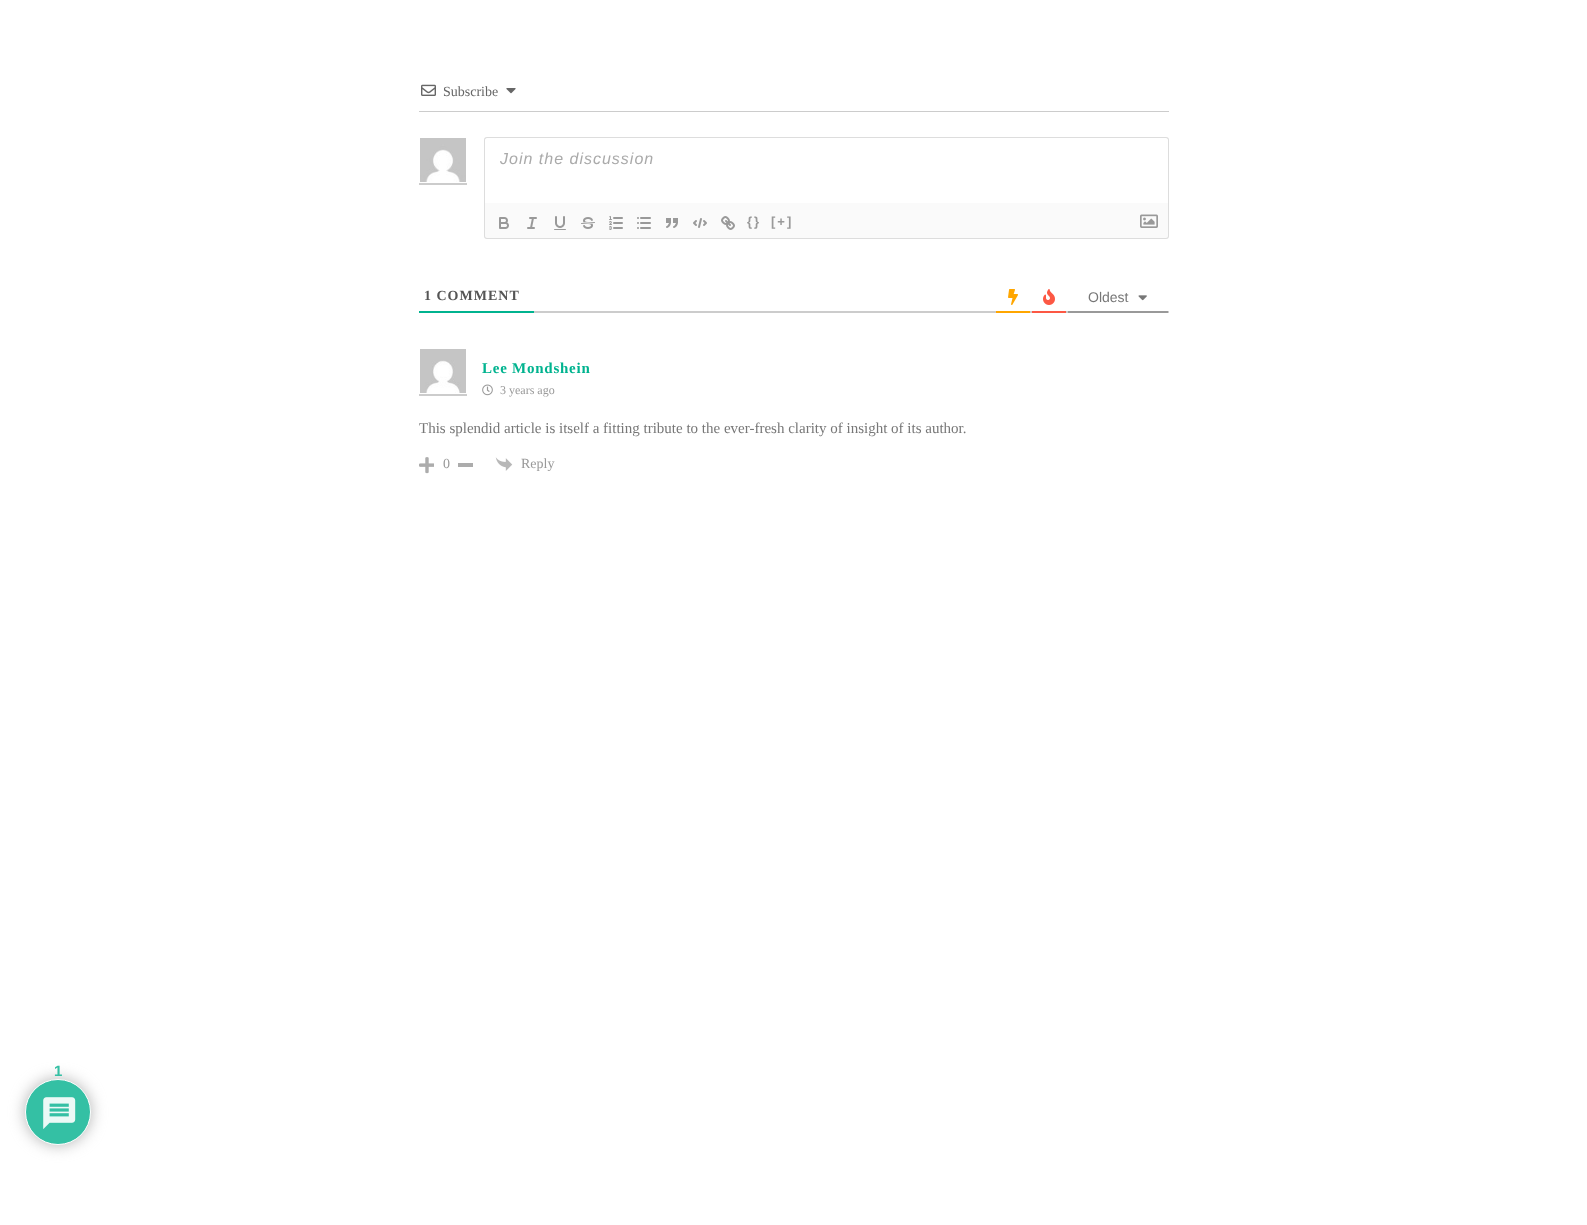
async function draw(canvas) {
  canvas.width = 1587;
  canvas.height = 1225;
  const ctx = canvas.getContext('2d');
  ctx.miterLimit = 4;
  ctx.fontKerning = 'normal';
  function label(s, x, y, font, color) {
    ctx.font = font;
    ctx.fillStyle = color;
    ctx.fillText(s, x, y);
  }
  function rect(x, y, w, h, color) {
    ctx.fillStyle = color;
    ctx.fillRect(x, y, w, h);
  }
  async function image(src, x, y, w, h) {
    const img = new Image();
    img.src = src;
    await img.decode();
    ctx.drawImage(img, x, y, w, h);
  }
  let path;

  rect(0, 0, 1587, 1225, '#fff');
  rect(419, 111, 750, 1, '#ccc');
  await image('assets/img1.png', 421, 84, 15, 12);
  label('Subscribe', 443, 96, '14px Liberation Serif', '#666');
  await image('assets/img2.png', 506, 88, 10, 6);
  await image('assets/img3.png', 420, 138, 46, 44);
  rect(419, 183, 48, 2, '#ccc');
  ctx.fillStyle = '#ddd';
  path = new Path2D('M487 137H1166C1168 137 1169 138 1169 140V203H484V140C484 138 485 137 487 137ZM487 138H1166C1167 138 1168 139 1168 140V203H485V140C485 139 486 138 487 138Z');
  ctx.fill(path, 'evenodd');
  ctx.letterSpacing = '1px';
  label('Join the discussion', 500, 164, 'italic 16px Liberation Sans', '#aaa');
  ctx.fillStyle = '#fafafa';
  ctx.beginPath();
  ctx.roundRect(484, 203, 685, 36, [0, 0, 3, 3]);
  ctx.fill();
  ctx.fillStyle = '#ddd';
  path = new Path2D('M484 203H1169V236C1169 238 1168 239 1166 239H487C485 239 484 238 484 236ZM485 203H1168V236C1168 237 1167 238 1166 238H487C486 238 485 237 485 236Z');
  ctx.fill(path, 'evenodd');
  await image('assets/img4.png', 499, 217, 10, 12);
  await image('assets/img5.png', 527, 217, 10, 12);
  await image('assets/img6.png', 554, 216, 12, 14);
  await image('assets/img7.png', 581, 217, 14, 12);
  await image('assets/img8.png', 609, 216, 14, 14);
  await image('assets/img9.png', 637, 217, 14, 12);
  await image('assets/img10.png', 666, 218, 12, 10);
  await image('assets/img11.png', 693, 218, 14, 10);
  await image('assets/img12.png', 721, 216, 14, 14);
  ctx.letterSpacing = '2px';
  label('{}', 747, 226, 'bold 13px Liberation Sans', '#999');
  label('[+]', 771, 226, 'bold 13px Liberation Sans', '#999');
  await image('assets/img13.png', 1140, 214, 18, 14);
  rect(534, 311, 635, 2, '#ccc');
  rect(419, 311, 115, 2, '#00b38f');
  ctx.letterSpacing = '1px';
  label('1 COMMENT', 424, 300, 'bold 14px Liberation Serif', '#555');
  rect(996, 311, 34, 2, '#ffa600');
  await image('assets/img14.png', 1008, 289, 10, 16);
  rect(1032, 311, 34, 2, '#fc5844');
  await image('assets/img15.png', 1043, 289, 12, 16);
  rect(1068, 311, 100, 2, '#999');
  ctx.letterSpacing = '0px';
  label('Oldest', 1088, 302, '14px Liberation Sans', '#777');
  await image('assets/img16.png', 1138, 295, 9, 6);
  await image('assets/img17.png', 420, 349, 46, 44);
  rect(419, 394, 48, 2, '#ccc');
  ctx.letterSpacing = '0.75px';
  label('Lee Mondshein', 482, 373, 'bold 15px Liberation Serif', '#00b38f');
  await image('assets/img18.png', 482, 384, 11, 12);
  ctx.letterSpacing = '0px';
  label('3 years ago', 500, 394, '12px Liberation Serif', '#999');
  label('This splendid article is itself a fitting tribute to the ever-fresh clarity of insight of its author.', 419, 433, '15px Liberation Serif', '#777');
  await image('assets/img19.png', 419, 457, 15, 17);
  label('0', 443, 468, '14px Liberation Serif', '#999');
  rect(458, 463, 15, 4, '#acacac');
  await image('assets/img20.png', 495, 457, 18, 14);
  label('Reply', 521, 468, '14px Liberation Serif', '#999');
  ctx.fillStyle = '#b3b3b3';
  ctx.filter = 'blur(7.5px)';
  ctx.beginPath();
  ctx.roundRect(25, 1079, 66, 66, 33);
  ctx.fill();
  ctx.filter = 'none';
  ctx.fillStyle = '#34c0a4';
  ctx.beginPath();
  ctx.arc(58, 1112, 32.5, 0, 2 * Math.PI);
  ctx.fill();
  ctx.strokeStyle = '#fff';
  ctx.stroke();
  await image('assets/img21.png', 43, 1097, 33, 32);
  label('1', 54, 1076, 'bold 15px Liberation Sans', '#34c0a4');
}

draw(document.querySelector('canvas'));
